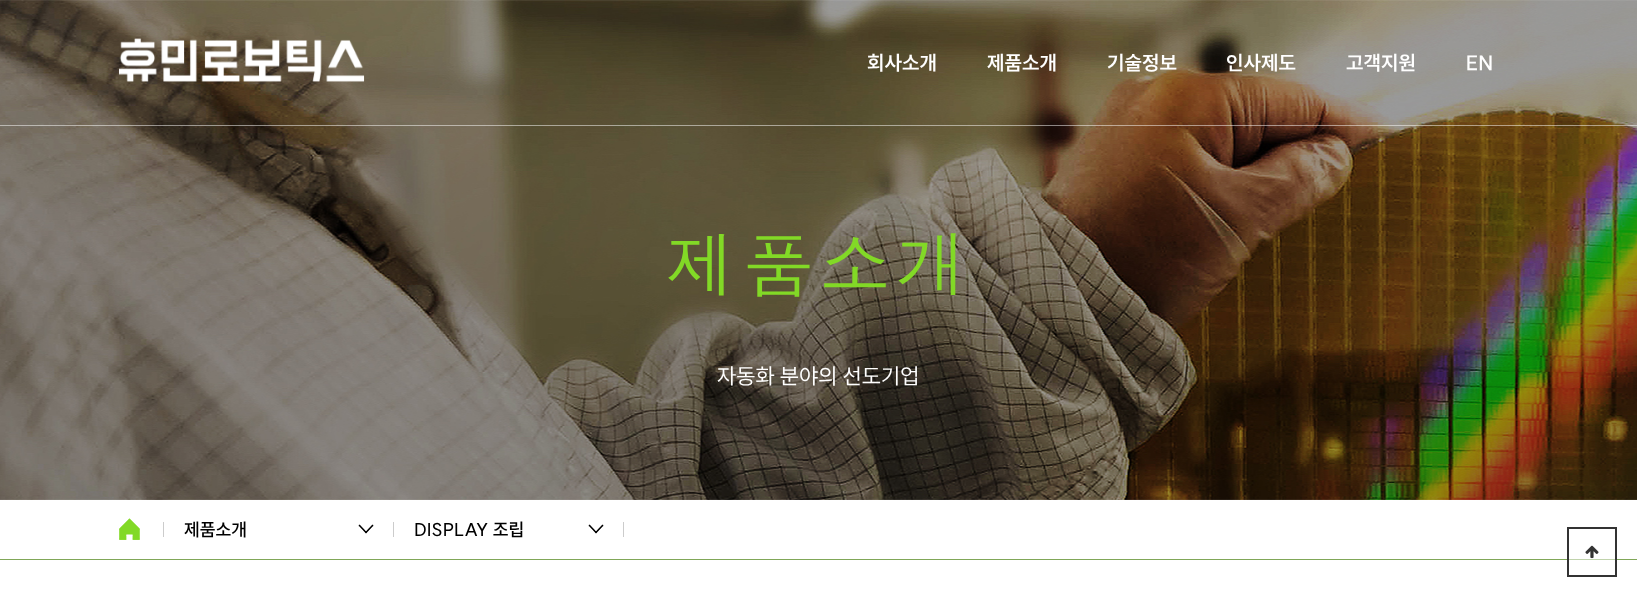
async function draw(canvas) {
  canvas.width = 1637;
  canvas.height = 597;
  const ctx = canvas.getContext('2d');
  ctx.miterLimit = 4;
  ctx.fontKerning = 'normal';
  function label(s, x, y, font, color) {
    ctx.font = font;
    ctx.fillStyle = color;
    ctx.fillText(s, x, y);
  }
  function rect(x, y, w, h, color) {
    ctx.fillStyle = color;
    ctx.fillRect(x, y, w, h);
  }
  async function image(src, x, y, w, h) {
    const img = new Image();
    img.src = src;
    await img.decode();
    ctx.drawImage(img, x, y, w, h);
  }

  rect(0, 0, 1637, 597, '#fff');
  await image('assets/img2.png', 0, 0, 1637, 500);
  rect(0, 125, 1637, 1, '#ffffff80');
  await image('assets/img1.png', 119, 38, 246, 44);
  label('회사소개', 867, 70, 'bold 20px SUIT', '#fff');
  label('제품소개', 987, 70, 'bold 20px SUIT', '#fff');
  label('기술정보', 1107, 70, 'bold 20px SUIT', '#fff');
  label('인사제도', 1226, 70, 'bold 20px SUIT', '#fff');
  label('고객지원', 1346, 70, 'bold 20px SUIT', '#fff');
  label('EN', 1466, 70, 'bold 20px SUIT', '#fff');
  ctx.letterSpacing = '5px';
  label('제품소개', 665, 292, '72px Dotum', '#82d926');
  ctx.letterSpacing = '0px';
  label('자동화 분야의 선도기업', 717, 384, '22px SUIT', '#fff');
  rect(0, 559, 1637, 1, '#80a758');
  rect(1567, 559, 50, 1, '#c0d3ac');
  await image('assets/img3.png', 119, 518, 21, 22);
  rect(163, 522, 1, 15, '#ccc');
  label('제품소개', 184, 536, '600 18px SUIT', '#000');
  await image('assets/img4.png', 358, 524, 16, 10);
  rect(393, 522, 1, 15, '#ccc');
  label('DISPLAY 조립', 414, 536, '600 18px SUIT', '#000');
  await image('assets/img4.png', 588, 524, 16, 10);
  rect(623, 522, 1, 15, '#ccc');
  ctx.strokeStyle = '#333';
  ctx.lineWidth = 2;
  ctx.strokeRect(1568, 528, 48, 48);
  await image('assets/img5.png', 1585, 545, 14, 14);
}

draw(document.querySelector('canvas'));
